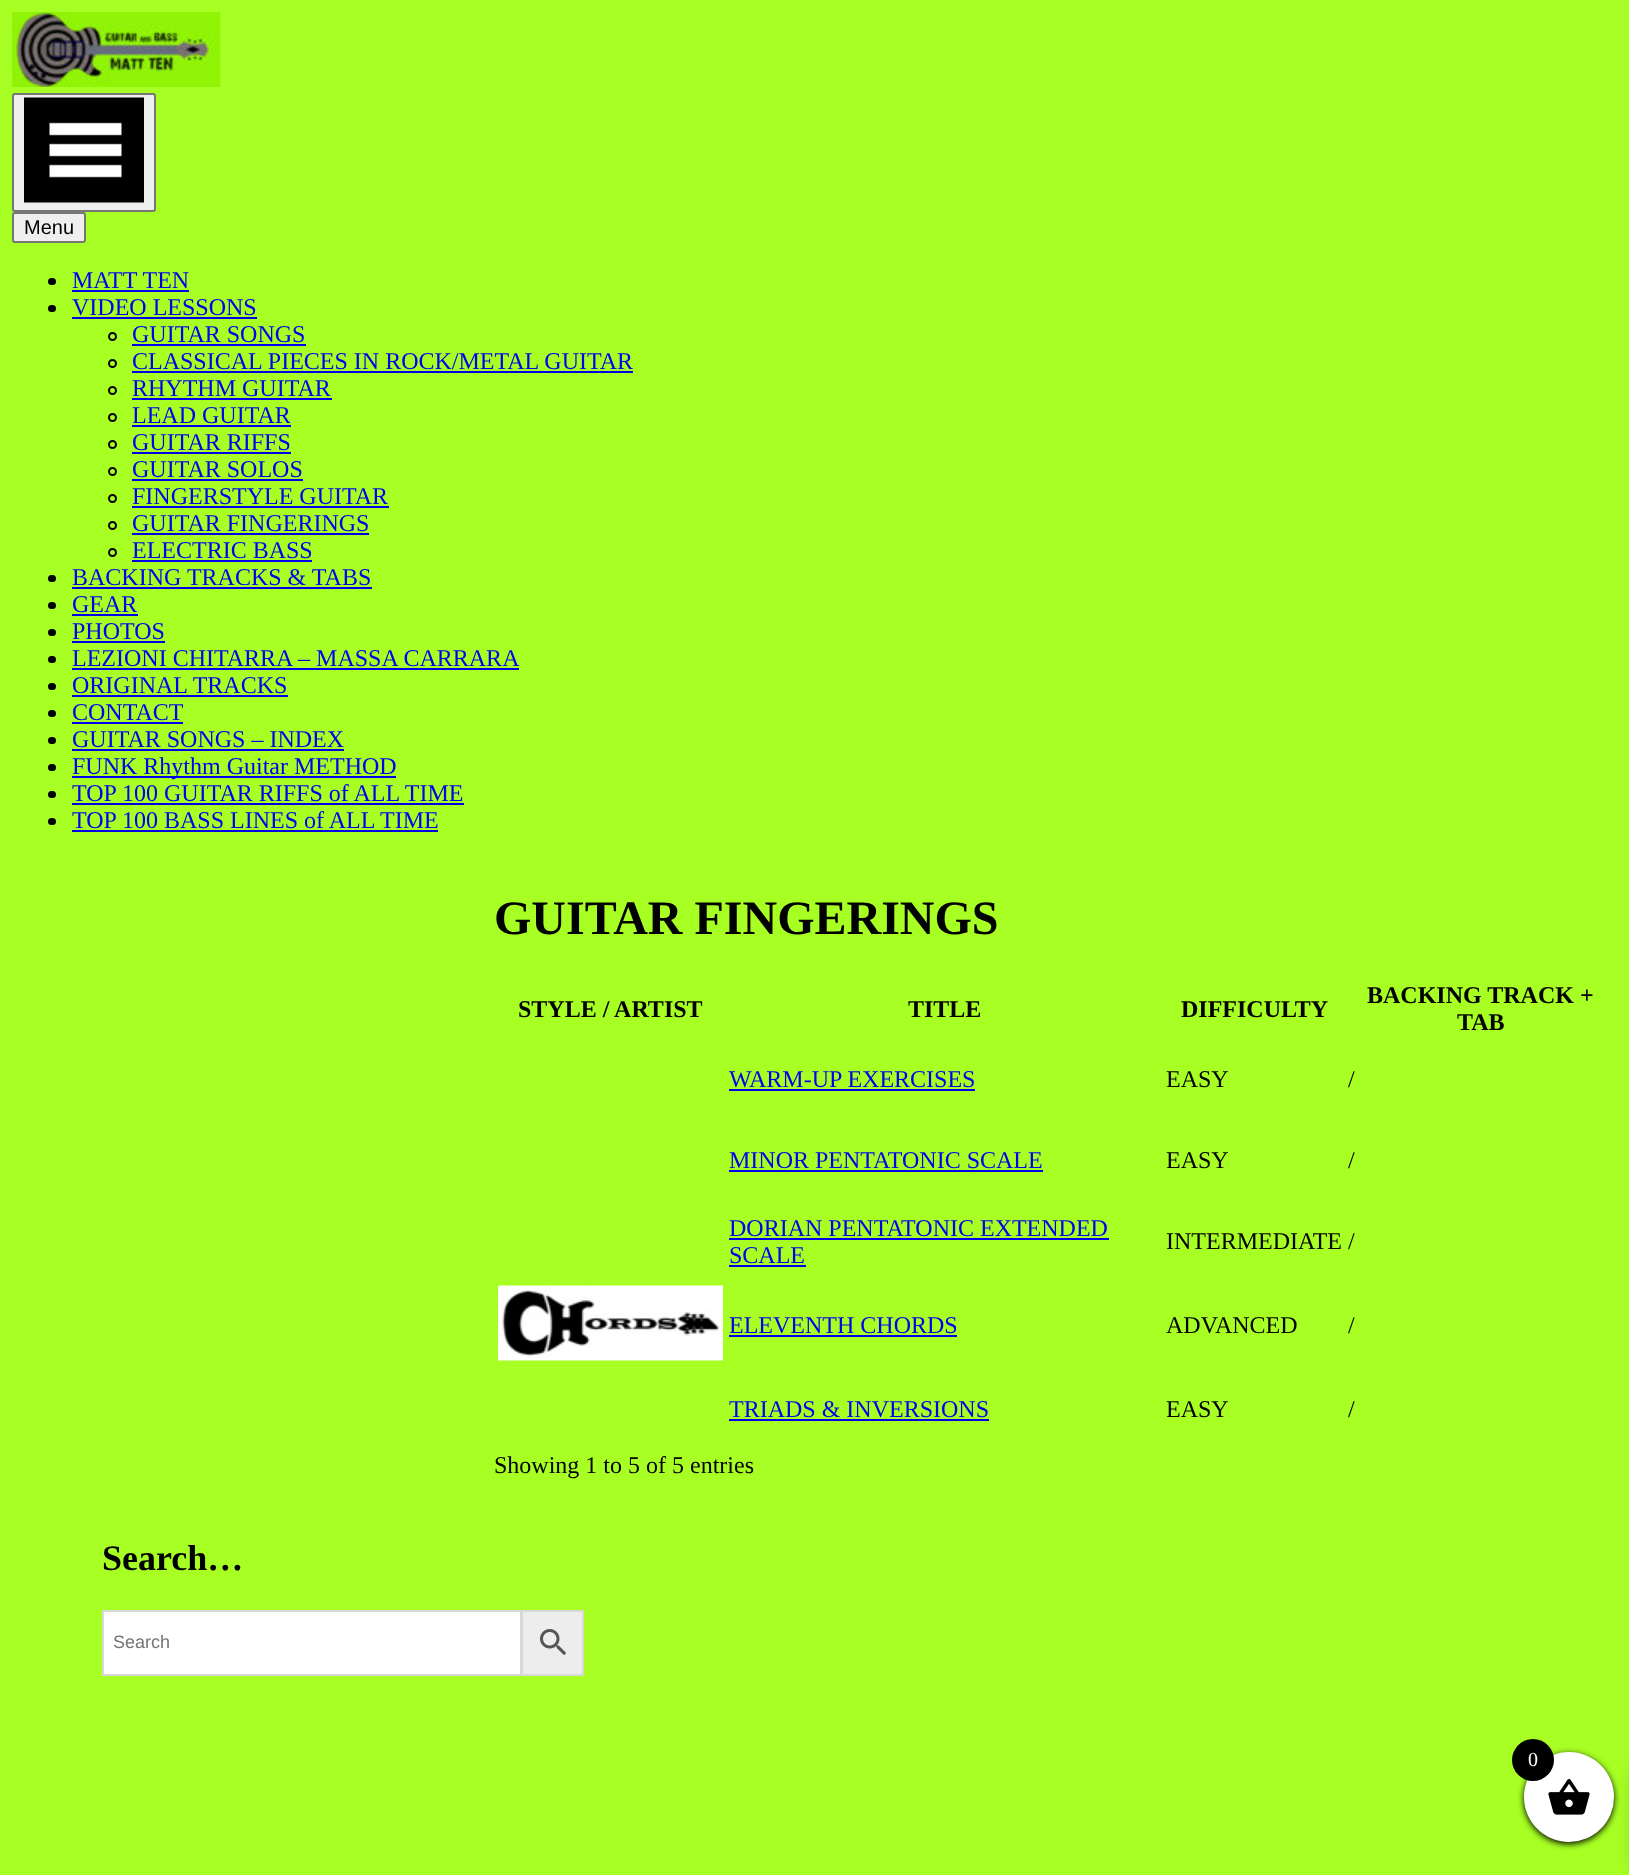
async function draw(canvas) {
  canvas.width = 1629;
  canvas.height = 1875;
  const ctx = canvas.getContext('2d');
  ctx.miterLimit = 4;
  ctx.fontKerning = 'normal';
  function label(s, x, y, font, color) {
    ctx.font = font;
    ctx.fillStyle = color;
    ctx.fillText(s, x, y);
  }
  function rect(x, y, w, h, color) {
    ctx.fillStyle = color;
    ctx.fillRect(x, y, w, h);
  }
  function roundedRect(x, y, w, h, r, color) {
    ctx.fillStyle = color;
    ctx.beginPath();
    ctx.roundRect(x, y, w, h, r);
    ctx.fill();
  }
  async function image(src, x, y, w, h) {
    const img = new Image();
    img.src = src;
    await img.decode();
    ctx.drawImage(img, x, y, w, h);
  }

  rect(0, 0, 1629, 1875, '#a7ff23');
  await image('assets/img1.png', 12, 12, 209, 75);
  ctx.fillStyle = '#efefef';
  ctx.beginPath();
  ctx.roundRect(13, 94, 142, 117, 2);
  ctx.fill();
  ctx.strokeStyle = '#767676';
  ctx.lineWidth = 2;
  ctx.stroke();
  await image('assets/img2.png', 24, 97, 120, 106);
  ctx.beginPath();
  ctx.roundRect(13, 213, 72, 29, 2);
  ctx.fill();
  ctx.stroke();
  label('Menu', 24, 234, '20px Liberation Sans', '#000');
  roundedRect(48, 278, 8, 7, 3.5, '#000');
  label('MATT TEN', 72, 288, '24px Liberation Serif', '#00e');
  rect(72, 290, 117, 2, '#00e');
  roundedRect(48, 305, 8, 7, 3.5, '#000');
  label('VIDEO LESSONS', 72, 315, '24px Liberation Serif', '#00e');
  rect(72, 317, 185, 2, '#00e');
  ctx.beginPath();
  ctx.arc(112.5, 336.5, 3.5, 0, 2 * Math.PI);
  ctx.strokeStyle = '#000';
  ctx.stroke();
  label('GUITAR SONGS', 132, 342, '24px Liberation Serif', '#00e');
  rect(132, 344, 174, 2, '#00e');
  ctx.beginPath();
  ctx.arc(112.5, 363.5, 3.5, 0, 2 * Math.PI);
  ctx.stroke();
  label('CLASSICAL PIECES IN ROCK/METAL GUITAR', 132, 369, '24px Liberation Serif', '#00e');
  rect(132, 371, 501, 2, '#00e');
  ctx.beginPath();
  ctx.arc(112.5, 390.5, 3.5, 0, 2 * Math.PI);
  ctx.stroke();
  label('RHYTHM GUITAR', 132, 396, '24px Liberation Serif', '#00e');
  rect(132, 398, 200, 2, '#00e');
  ctx.beginPath();
  ctx.arc(112.5, 417.5, 3.5, 0, 2 * Math.PI);
  ctx.stroke();
  label('LEAD GUITAR', 132, 423, '24px Liberation Serif', '#00e');
  rect(132, 425, 159, 2, '#00e');
  ctx.beginPath();
  ctx.arc(112.5, 444.5, 3.5, 0, 2 * Math.PI);
  ctx.stroke();
  label('GUITAR RIFFS', 132, 450, '24px Liberation Serif', '#00e');
  rect(132, 452, 159, 2, '#00e');
  ctx.beginPath();
  ctx.arc(112.5, 471.5, 3.5, 0, 2 * Math.PI);
  ctx.stroke();
  label('GUITAR SOLOS', 132, 477, '24px Liberation Serif', '#00e');
  rect(132, 479, 171, 2, '#00e');
  ctx.beginPath();
  ctx.arc(112.5, 498.5, 3.5, 0, 2 * Math.PI);
  ctx.stroke();
  label('FINGERSTYLE GUITAR', 132, 504, '24px Liberation Serif', '#00e');
  rect(132, 506, 257, 2, '#00e');
  ctx.beginPath();
  ctx.arc(112.5, 525.5, 3.5, 0, 2 * Math.PI);
  ctx.stroke();
  label('GUITAR FINGERINGS', 132, 531, '24px Liberation Serif', '#00e');
  rect(132, 533, 237, 2, '#00e');
  ctx.beginPath();
  ctx.arc(112.5, 552.5, 3.5, 0, 2 * Math.PI);
  ctx.stroke();
  label('ELECTRIC BASS', 132, 558, '24px Liberation Serif', '#00e');
  rect(132, 560, 180, 2, '#00e');
  roundedRect(48, 575, 8, 7, 3.5, '#000');
  label('BACKING TRACKS & TABS', 72, 585, '24px Liberation Serif', '#00e');
  rect(72, 587, 300, 2, '#00e');
  roundedRect(48, 602, 8, 7, 3.5, '#000');
  label('GEAR', 72, 612, '24px Liberation Serif', '#00e');
  rect(72, 614, 66, 2, '#00e');
  roundedRect(48, 629, 8, 7, 3.5, '#000');
  label('PHOTOS', 72, 639, '24px Liberation Serif', '#00e');
  rect(72, 641, 93, 2, '#00e');
  roundedRect(48, 656, 8, 7, 3.5, '#000');
  label('LEZIONI CHITARRA – MASSA CARRARA', 72, 666, '24px Liberation Serif', '#00e');
  rect(72, 668, 447, 2, '#00e');
  roundedRect(48, 683, 8, 7, 3.5, '#000');
  label('ORIGINAL TRACKS', 72, 693, '24px Liberation Serif', '#00e');
  rect(72, 695, 216, 2, '#00e');
  roundedRect(48, 710, 8, 7, 3.5, '#000');
  label('CONTACT', 72, 720, '24px Liberation Serif', '#00e');
  rect(72, 722, 111, 2, '#00e');
  roundedRect(48, 737, 8, 7, 3.5, '#000');
  label('GUITAR SONGS – INDEX', 72, 747, '24px Liberation Serif', '#00e');
  rect(72, 749, 272, 2, '#00e');
  roundedRect(48, 764, 8, 7, 3.5, '#000');
  rect(72, 776, 324, 2, '#00e');
  label('FUNK Rhythm Guitar METHOD', 72, 774, '24px Liberation Serif', '#00e');
  roundedRect(48, 791, 8, 7, 3.5, '#000');
  label('TOP 100 GUITAR RIFFS of ALL TIME', 72, 801, '24px Liberation Serif', '#00e');
  rect(72, 803, 392, 2, '#00e');
  roundedRect(48, 818, 8, 7, 3.5, '#000');
  label('TOP 100 BASS LINES of ALL TIME', 72, 828, '24px Liberation Serif', '#00e');
  rect(72, 830, 366, 2, '#00e');
  label('GUITAR FINGERINGS', 494, 934, 'bold 48px Liberation Serif', '#000');
  label('STYLE / ARTIST', 518, 1017, 'bold 24px Liberation Serif', '#000');
  label('TITLE', 908, 1017, 'bold 24px Liberation Serif', '#000');
  label('DIFFICULTY', 1181, 1017, 'bold 24px Liberation Serif', '#000');
  label('BACKING TRACK +', 1367, 1003, 'bold 24px Liberation Serif', '#000');
  label('TAB', 1457, 1030, 'bold 24px Liberation Serif', '#000');
  label('WARM-UP EXERCISES', 729, 1087, '24px Liberation Serif', '#00e');
  rect(729, 1089, 246, 2, '#00e');
  label('EASY', 1166, 1087, '24px Liberation Serif', '#000');
  label('/', 1348, 1087, '24px Liberation Serif', '#000');
  label('MINOR PENTATONIC SCALE', 729, 1168, '24px Liberation Serif', '#00e');
  rect(729, 1170, 314, 2, '#00e');
  label('EASY', 1166, 1168, '24px Liberation Serif', '#000');
  label('/', 1348, 1168, '24px Liberation Serif', '#000');
  label('DORIAN PENTATONIC EXTENDED', 729, 1236, '24px Liberation Serif', '#00e');
  rect(729, 1238, 380, 2, '#00e');
  label('SCALE', 729, 1263, '24px Liberation Serif', '#00e');
  rect(729, 1265, 77, 2, '#00e');
  label('INTERMEDIATE /', 1166, 1249, '24px Liberation Serif', '#000');
  await image('assets/img3.png', 498, 1285, 225, 76);
  label('ELEVENTH CHORDS', 729, 1333, '24px Liberation Serif', '#00e');
  rect(729, 1335, 228, 2, '#00e');
  label('ADVANCED', 1166, 1333, '24px Liberation Serif', '#000');
  label('/', 1348, 1333, '24px Liberation Serif', '#000');
  label('TRIADS & INVERSIONS', 729, 1417, '24px Liberation Serif', '#00e');
  rect(729, 1419, 260, 2, '#00e');
  label('EASY', 1166, 1417, '24px Liberation Serif', '#000');
  label('/', 1348, 1417, '24px Liberation Serif', '#000');
  label('Showing 1 to 5 of 5 entries', 494, 1473, '24px Liberation Serif', '#000');
  label('Search…', 102, 1570, 'bold 36px Liberation Serif', '#000');
  ctx.fillStyle = '#ededed';
  ctx.beginPath();
  ctx.rect(522, 1611, 61, 64);
  ctx.fill();
  ctx.strokeStyle = '#d8d8d8';
  ctx.stroke();
  ctx.fillStyle = '#fff';
  ctx.beginPath();
  ctx.rect(103, 1611, 418, 64);
  ctx.fill();
  ctx.stroke();
  label('Search', 113, 1648, '18px Liberation Sans', '#757575');
  await image('assets/img4.png', 540, 1629, 27, 27);
  ctx.fillStyle = '#000';
  ctx.filter = 'blur(3px)';
  ctx.beginPath();
  ctx.roundRect(1524, 1754, 90, 90, 45);
  ctx.fill();
  ctx.filter = 'none';
  ctx.fillStyle = '#0000001a';
  ctx.filter = 'blur(7.5px)';
  ctx.beginPath();
  ctx.rect(1629, 1770, 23, 98);
  ctx.fill();
  ctx.filter = 'none';
  ctx.fillStyle = '#fff';
  ctx.beginPath();
  ctx.arc(1569, 1797, 45, 0, 2 * Math.PI);
  ctx.fill();
  await image('assets/img5.png', 1548, 1779, 42, 36);
  ctx.fillStyle = '#000';
  ctx.beginPath();
  ctx.arc(1533, 1760, 21, 0, 2 * Math.PI);
  ctx.fill();
  label('0', 1528, 1766, '20px Liberation Serif', '#fff');
}

draw(document.querySelector('canvas'));
